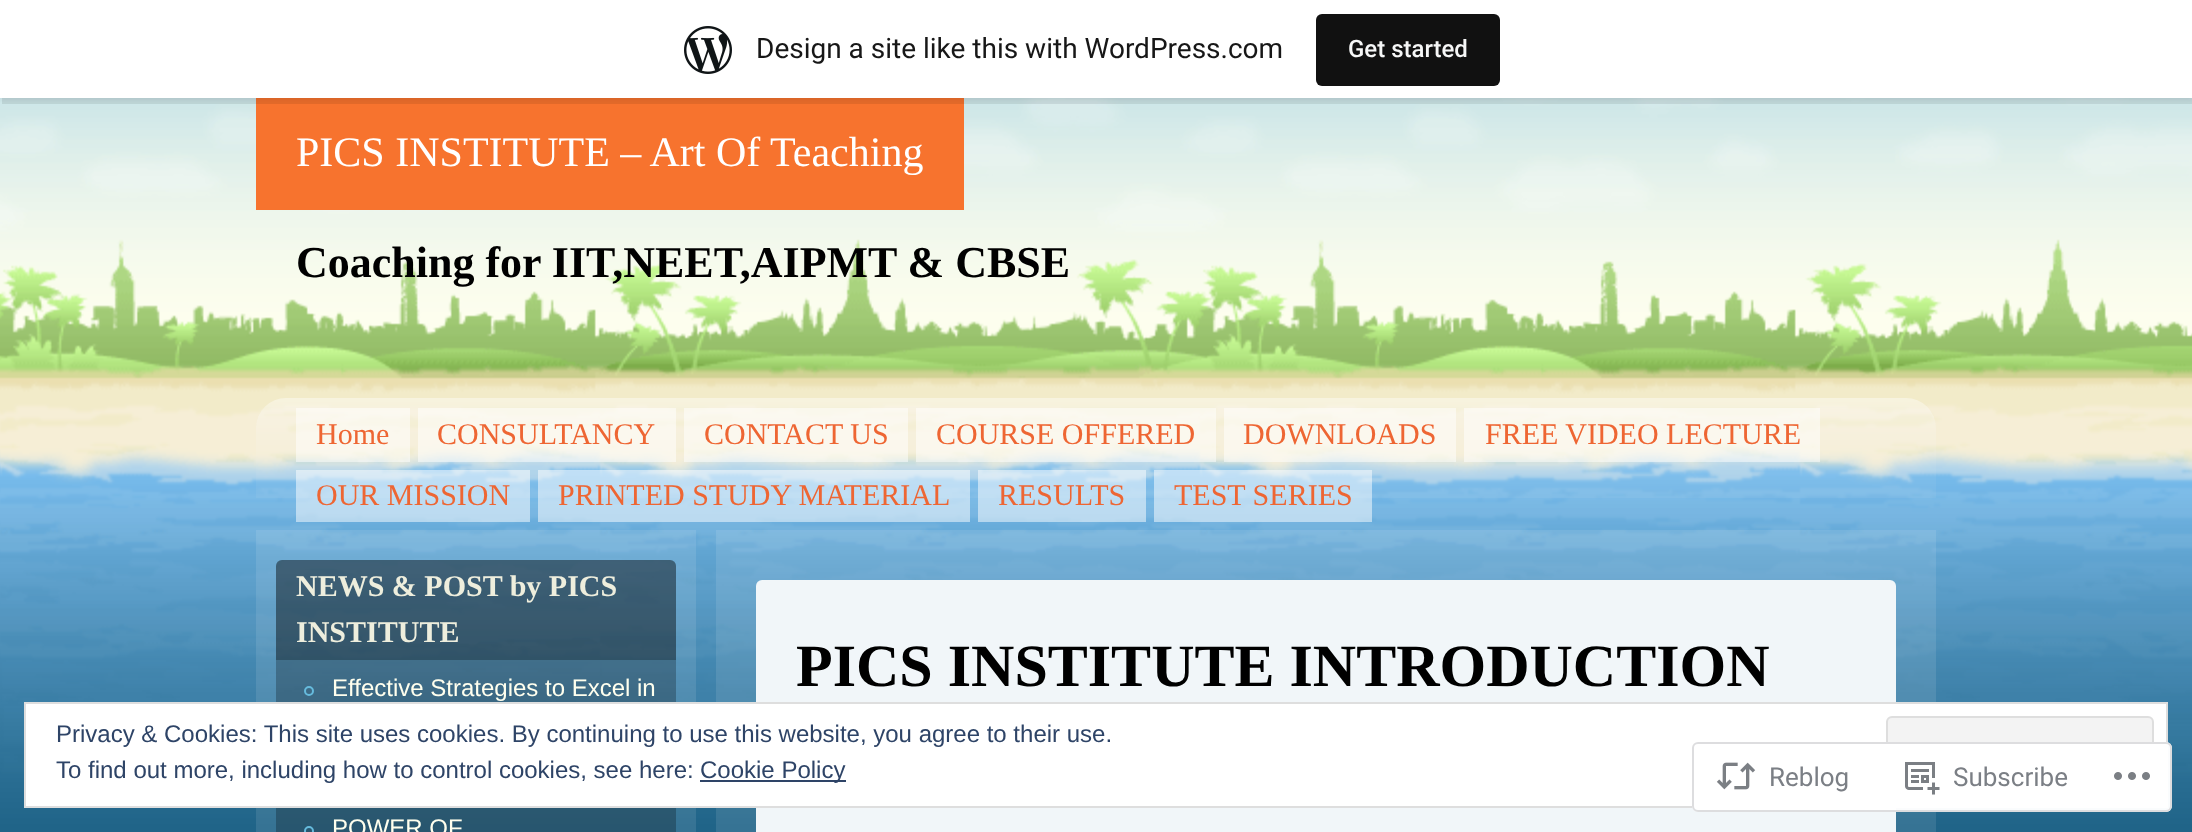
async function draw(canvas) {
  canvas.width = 2192;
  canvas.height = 832;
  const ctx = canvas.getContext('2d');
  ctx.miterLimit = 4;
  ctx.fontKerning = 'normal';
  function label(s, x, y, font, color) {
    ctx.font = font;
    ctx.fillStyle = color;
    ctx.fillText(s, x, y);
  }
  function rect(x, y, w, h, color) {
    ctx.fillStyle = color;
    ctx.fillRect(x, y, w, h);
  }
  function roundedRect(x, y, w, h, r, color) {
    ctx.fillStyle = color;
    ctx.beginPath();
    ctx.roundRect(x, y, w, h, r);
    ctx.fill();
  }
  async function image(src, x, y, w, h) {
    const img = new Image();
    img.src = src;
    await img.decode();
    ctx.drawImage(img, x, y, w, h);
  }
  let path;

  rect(0, 0, 2192, 832, '#fff');
  await image('assets/img2.png', 0, 98, 2192, 300);
  rect(256, 98, 708, 112, '#f7732e');
  ctx.fillStyle = '#0000000d';
  ctx.filter = 'blur(2px)';
  ctx.beginPath();
  ctx.rect(0, 2, 2192, 98);
  ctx.fill();
  ctx.filter = 'none';
  ctx.fillStyle = '#00000014';
  path = new Path2D('M2 98V104H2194V6H2192V98Z');
  ctx.fill(path);
  rect(0, 0, 2192, 98, '#fff');
  await image('assets/img1.png', 684, 26, 48, 48);
  label('Design a site like this with WordPress.com', 756, 58, '28px Roboto', '#171717');
  roundedRect(1316, 14, 184, 72, 6, '#111');
  label('Get started', 1348, 57, '500 24px Roboto', '#f6f7f7');
  label('PICS INSTITUTE – Art Of Teaching', 296, 166, '42px Liberation Serif', '#fff');
  label('Coaching for IIT,NEET,AIPMT & CBSE', 296, 277, 'bold 44px Liberation Serif', '#000');
  await image('assets/img3.png', 0, 398, 2192, 434);
  await image('assets/img4.png', 256, 398, 1680, 100);
  rect(296, 408, 114, 54, '#ffffff80');
  label('Home', 316, 444, '30px Liberation Serif', '#e63');
  rect(418, 408, 258, 54, '#ffffff80');
  label('CONSULTANCY', 437, 444, '30px Liberation Serif', '#e63');
  rect(684, 408, 224, 54, '#ffffff80');
  label('CONTACT US', 704, 444, '30px Liberation Serif', '#e63');
  rect(916, 408, 300, 54, '#ffffff80');
  label('COURSE OFFERED', 936, 444, '30px Liberation Serif', '#e63');
  rect(1224, 408, 232, 54, '#ffffff80');
  label('DOWNLOADS', 1243, 444, '30px Liberation Serif', '#e63');
  rect(1464, 408, 356, 54, '#ffffff80');
  label('FREE VIDEO LECTURE', 1485, 444, '30px Liberation Serif', '#e63');
  rect(296, 470, 234, 52, '#ffffff80');
  label('OUR MISSION', 316, 505, '30px Liberation Serif', '#e63');
  rect(538, 470, 432, 52, '#ffffff80');
  label('PRINTED STUDY MATERIAL', 558, 505, '30px Liberation Serif', '#e63');
  rect(978, 470, 168, 52, '#ffffff80');
  label('RESULTS', 998, 505, '30px Liberation Serif', '#e63');
  rect(1154, 470, 218, 52, '#ffffff80');
  label('TEST SERIES', 1174, 505, '30px Liberation Serif', '#e63');
  rect(256, 530, 440, 302, '#ffffff1a');
  await image('assets/img5.png', 276, 560, 400, 272);
  await image('assets/img6.png', 276, 560, 400, 100);
  label('NEWS & POST by PICS', 296, 596, 'bold 30px Liberation Serif', '#eed');
  label('INSTITUTE', 296, 642, 'bold 30px Liberation Serif', '#eed');
  ctx.beginPath();
  ctx.arc(309, 691, 4, 0, 2 * Math.PI);
  ctx.strokeStyle = '#6bd';
  ctx.lineWidth = 2;
  ctx.stroke();
  label('Effective Strategies to Excel in', 332, 696, '24px Liberation Sans', '#ffe');
  ctx.beginPath();
  ctx.arc(309, 831, 4, 0, 2 * Math.PI);
  ctx.stroke();
  label('POWER OF', 332, 836, '24px Liberation Sans', '#ffe');
  rect(716, 530, 1220, 302, '#ffffff1a');
  roundedRect(756, 580, 1140, 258, 6, '#f1f6f9');
  label('PICS INSTITUTE INTRODUCTION', 796, 686, 'bold 60px Liberation Serif', '#000');
  ctx.fillStyle = '#fff';
  ctx.beginPath();
  ctx.rect(25, 703, 2142, 104);
  ctx.fill();
  ctx.strokeStyle = '#dedede';
  ctx.stroke();
  label('Privacy & Cookies: This site uses cookies. By continuing to use this website, you agree to their use.', 56, 742, '24px Liberation Sans', '#2e4467');
  ctx.fillStyle = '#f3f3f3';
  ctx.beginPath();
  ctx.roundRect(1887, 717, 266, 76, 5);
  ctx.fill();
  ctx.stroke();
  label('To find out more, including how to control cookies, see here:', 56, 778, '24px Liberation Sans', '#2e4467');
  rect(700, 780, 146, 2, '#2e4467');
  label('Cookie Policy', 700, 778, '24px Liberation Sans', '#2e4467');
  roundedRect(1692, 742, 480, 70, 6, '#fffffffa');
  ctx.beginPath();
  ctx.roundRect(1693, 743, 478, 68, 5);
  ctx.strokeStyle = '#dcdcdefa';
  ctx.stroke();
  await image('assets/img7.png', 1716, 762, 40, 28);
  label('Reblog', 1769, 786, '26px Roboto', '#7b7f85');
  await image('assets/img8.png', 1905, 762, 35, 33);
  label('Subscribe', 1953, 786, '26px Roboto', '#7b7f85');
  await image('assets/img9.png', 2114, 772, 36, 8);
}

draw(document.querySelector('canvas'));
